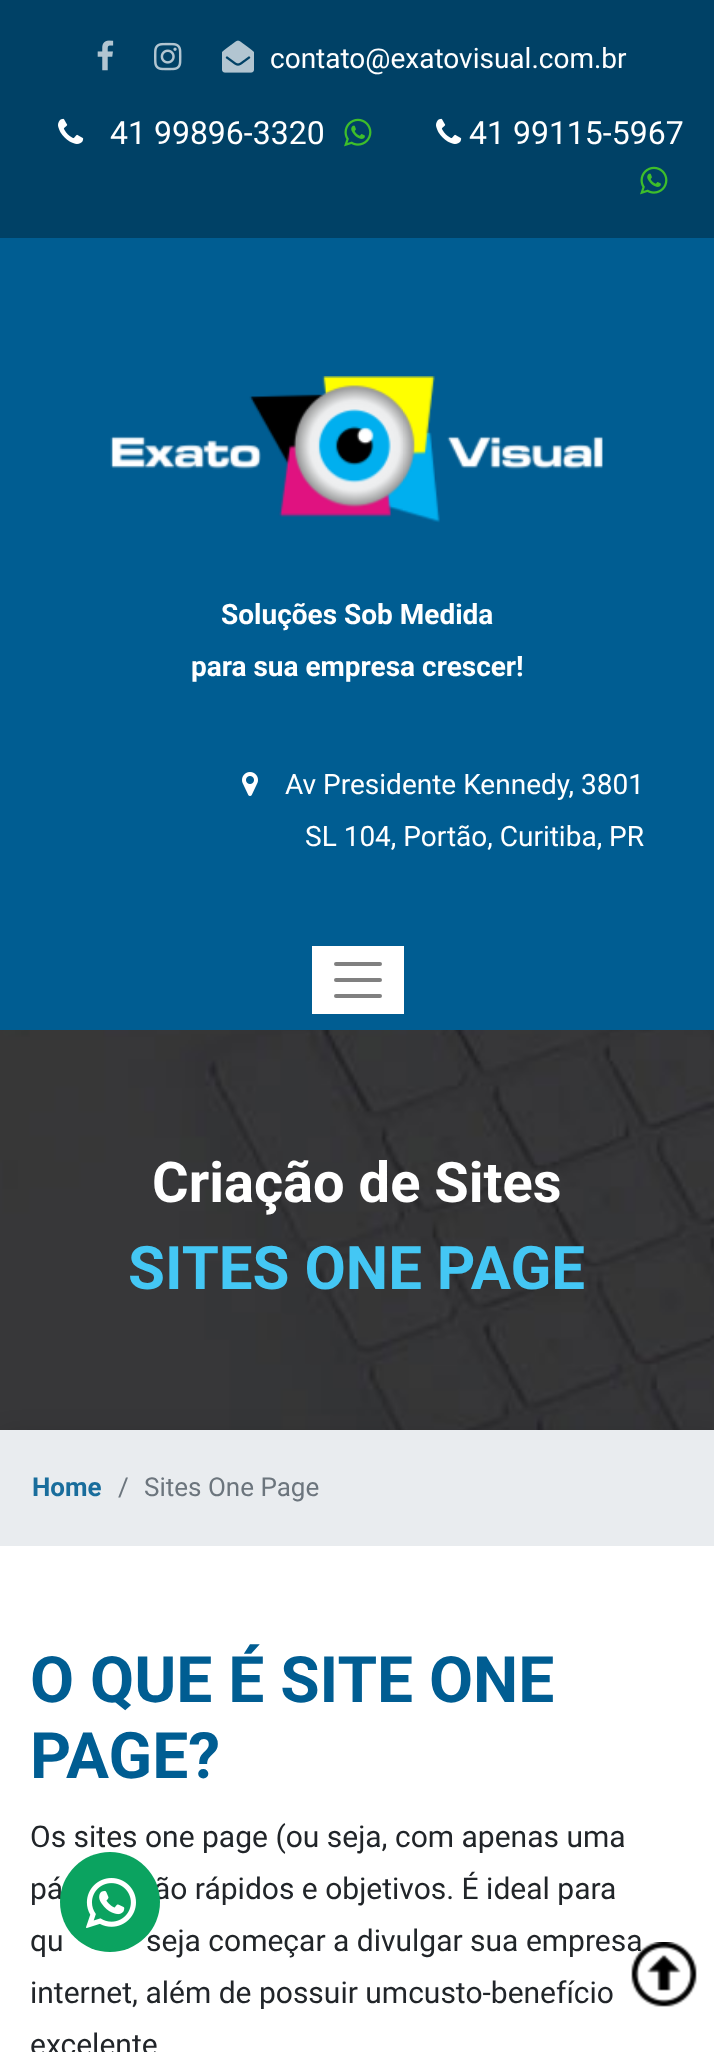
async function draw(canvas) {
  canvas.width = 714;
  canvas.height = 2052;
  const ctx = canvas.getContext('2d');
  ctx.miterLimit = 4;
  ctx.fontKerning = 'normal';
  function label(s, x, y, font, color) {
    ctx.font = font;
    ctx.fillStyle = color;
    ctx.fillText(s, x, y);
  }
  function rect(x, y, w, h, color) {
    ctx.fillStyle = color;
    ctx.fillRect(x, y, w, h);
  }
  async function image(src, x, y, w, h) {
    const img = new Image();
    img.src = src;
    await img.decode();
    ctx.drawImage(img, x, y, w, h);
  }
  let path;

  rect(0, 0, 714, 2052, '#004166');
  await image('assets/img1.png', 97, 40, 17, 31);
  await image('assets/img2.png', 154, 42, 28, 29);
  await image('assets/img3.png', 222, 40, 32, 33);
  label('contato@exatovisual.com.br', 270, 68, '28px Roboto', '#fff');
  await image('assets/img4.png', 58, 118, 26, 26);
  label('41 99896-3320', 110, 144, '32px Roboto', '#fff');
  await image('assets/img5.png', 344, 118, 28, 29);
  await image('assets/img4.png', 436, 118, 26, 26);
  label('41 99115-5967', 469, 144, '32px Roboto', '#fff');
  await image('assets/img5.png', 640, 166, 28, 29);
  rect(0, 238, 714, 792, '#005d92');
  await image('assets/img6.png', 110, 376, 493, 147);
  label('Soluções Sob Medida', 221, 624, 'bold 28px Roboto', '#fff');
  label('para sua empresa crescer!', 191, 676, 'bold 28px Roboto', '#fff');
  await image('assets/img7.png', 242, 772, 16, 24);
  label('Av Presidente Kennedy, 3801', 285, 794, '28px Roboto', '#fff');
  label('SL 104, Portão, Curitiba, PR', 305, 846, '28px Roboto', '#fff');
  rect(312, 946, 92, 68, '#fff');
  path = new Path2D('M336 964H380M336 980H380M336 996H380');
  ctx.strokeStyle = '#808080';
  ctx.lineWidth = 4;
  ctx.lineCap = 'round';
  ctx.stroke(path);
  await image('assets/img8.png', 0, 1030, 714, 400);
  label('Criação de Sites', 152, 1202, 'bold 56px Roboto', '#fff');
  label('SITES ONE PAGE', 128, 1289, 'bold 60px Roboto', '#44c7f4');
  ctx.fillStyle = '#00000026';
  ctx.filter = 'blur(12px)';
  ctx.beginPath();
  ctx.rect(2, 1434, 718, 120);
  ctx.fill();
  ctx.filter = 'none';
  rect(0, 1430, 714, 116, '#e9ecef');
  label('Home', 32, 1496, 'bold 26px Roboto', '#196d9c');
  label('/', 118, 1496, '26px Roboto', '#6c757d');
  label('Sites One Page', 144, 1496, '26px Roboto', '#6c757d');
  rect(0, 1546, 714, 506, '#fff');
  label('O QUE É SITE ONE', 30, 1702, 'bold 64px Roboto', '#005d92');
  label('PAGE?', 30, 1778, 'bold 64px Roboto', '#005d92');
  label('Os sites one page (ou seja, com apenas uma', 30, 1847, '30px Roboto', '#212529');
  label('pá', 30, 1899, '30px Roboto', '#212529');
  label('ão rápidos e objetivos. É ideal para', 154, 1899, '30px Roboto', '#212529');
  label('qu', 30, 1951, '30px Roboto', '#212529');
  label('seja começar a divulgar sua empresa', 146, 1951, '30px Roboto', '#212529');
  label('internet, além de possuir umcusto-benefício', 30, 2003, '30px Roboto', '#212529');
  label('excelente', 30, 2055, '30px Roboto', '#212529');
  ctx.fillStyle = '#0ba360';
  ctx.beginPath();
  ctx.arc(110, 1902, 50, 0, 2 * Math.PI);
  ctx.fill();
  await image('assets/img9.png', 86, 1878, 50, 50);
  await image('assets/img10.png', 631, 1942, 66, 65);
}

draw(document.querySelector('canvas'));
